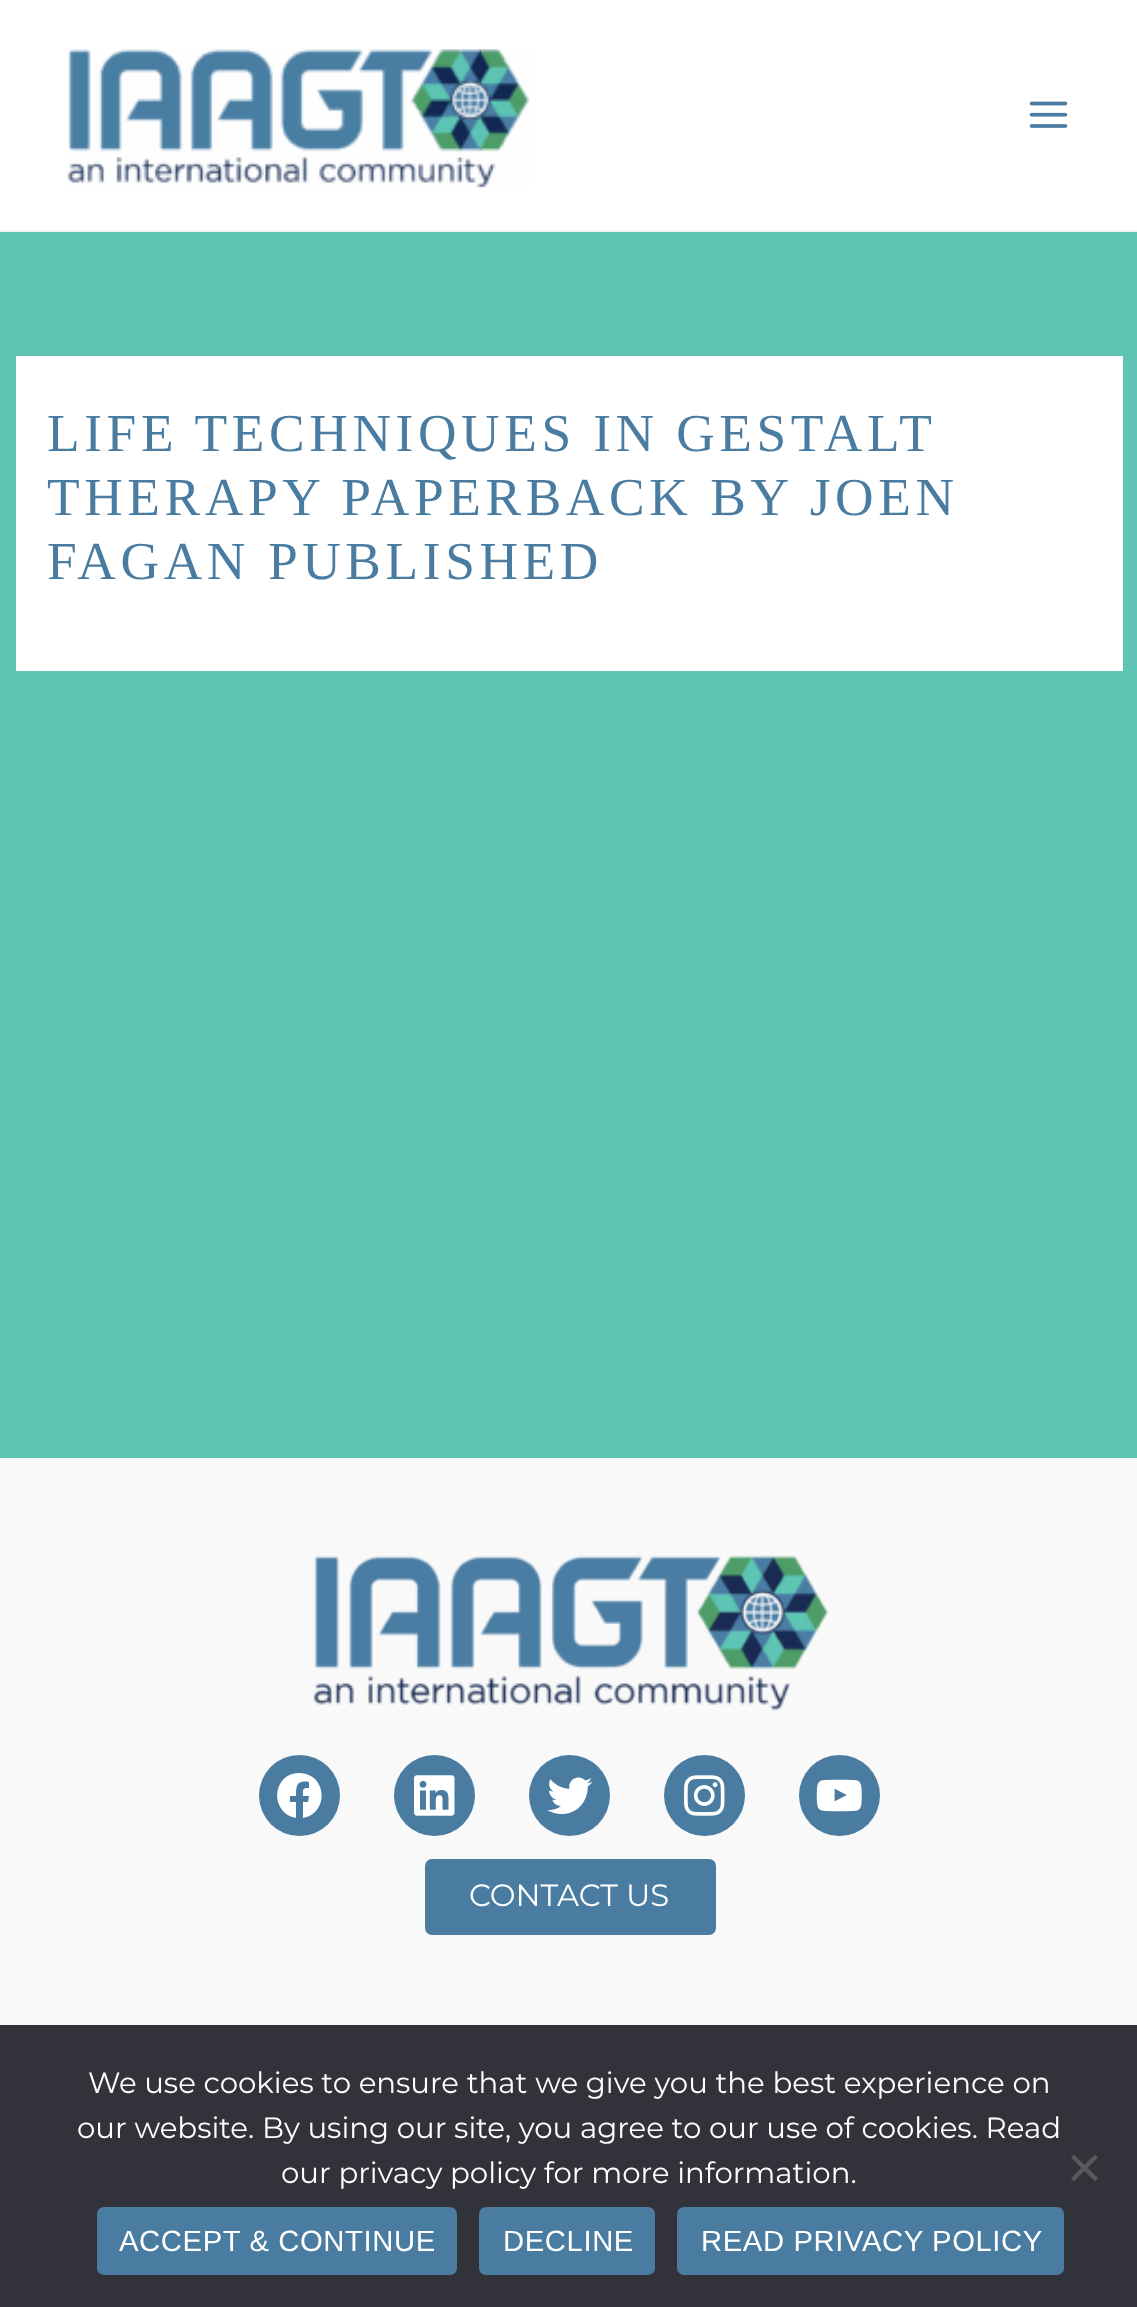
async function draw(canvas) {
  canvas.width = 1137;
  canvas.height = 2307;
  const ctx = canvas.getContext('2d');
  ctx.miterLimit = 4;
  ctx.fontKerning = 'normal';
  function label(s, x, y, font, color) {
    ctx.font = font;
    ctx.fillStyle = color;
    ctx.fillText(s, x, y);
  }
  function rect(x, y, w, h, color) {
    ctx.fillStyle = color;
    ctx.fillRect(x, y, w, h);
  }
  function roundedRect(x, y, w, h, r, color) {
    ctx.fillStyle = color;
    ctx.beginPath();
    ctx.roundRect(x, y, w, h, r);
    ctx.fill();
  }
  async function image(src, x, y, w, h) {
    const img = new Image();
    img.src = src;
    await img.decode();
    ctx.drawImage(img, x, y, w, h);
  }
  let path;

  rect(0, 0, 1137, 2307, '#60c4b4');
  rect(0, 0, 1137, 230, '#fff');
  rect(0, 230, 1137, 2, '#f2f5f7');
  await image('assets/img1.png', 67, 49, 463, 140);
  await image('assets/img2.png', 1029, 101, 39, 27);
  rect(16, 356, 1107, 315, '#fff');
  ctx.letterSpacing = '4.6px';
  ctx.wordSpacing = '-0.5px';
  label('LIFE TECHNIQUES IN GESTALT', 47, 451, '53.4px Liberation Serif', '#4a7ca2');
  ctx.wordSpacing = '0px';
  label('THERAPY PAPERBACK BY JOEN', 47, 515, '53.4px Liberation Serif', '#4a7ca2');
  label('FAGAN PUBLISHED', 47, 579, '53.4px Liberation Serif', '#4a7ca2');
  rect(0, 1460, 1137, 565, '#f9f9f9');
  rect(0, 1458, 1137, 2, '#f2f5f7');
  await image('assets/img3.png', 313, 1555, 516, 156);
  ctx.fillStyle = '#4a7ca2';
  ctx.beginPath();
  ctx.arc(299.5, 1795.5, 40.5, 0, 2 * Math.PI);
  ctx.fill();
  ctx.fillStyle = '#fff';
  path = new Path2D('M299 1773C272 1773 269 1813 296 1818V1802H290V1796H296C296 1785 297 1780 309 1782V1788C302 1788 303 1789 303 1796H309L308 1802H303V1818C330 1813 327 1773 299 1773Z');
  ctx.fill(path);
  ctx.fillStyle = '#4a7ca2';
  ctx.beginPath();
  ctx.arc(434.5, 1795.5, 40.5, 0, 2 * Math.PI);
  ctx.fill();
  await image('assets/img4.png', 414, 1775, 41, 41);
  ctx.beginPath();
  ctx.arc(569.5, 1795.5, 40.5, 0, 2 * Math.PI);
  ctx.fill();
  await image('assets/img5.png', 547, 1777, 46, 38);
  ctx.beginPath();
  ctx.arc(704.5, 1795.5, 40.5, 0, 2 * Math.PI);
  ctx.fill();
  await image('assets/img6.png', 684, 1775, 41, 41);
  ctx.beginPath();
  ctx.arc(839.5, 1795.5, 40.5, 0, 2 * Math.PI);
  ctx.fill();
  await image('assets/img7.png', 816, 1779, 46, 33);
  roundedRect(425, 1859, 291, 76, 7, '#4a7ca2');
  ctx.letterSpacing = '0px';
  label('CONTACT US', 469, 1906, '100 30.75px Montserrat', '#fff');
  rect(0, 2025, 1137, 282, '#32323a');
  label('We use cookies to ensure that we give you the best experience on', 88, 2093, '100 29.25px Montserrat', '#fff');
  label('our website. By using our site, you agree to our use of cookies. Read', 77, 2138, '100 29.25px Montserrat', '#fff');
  label('our privacy policy for more information.', 281, 2183, '100 29.25px Montserrat', '#fff');
  ctx.fillStyle = '#59595d';
  path = new Path2D('M1095 2154.5L1098 2157.5L1074 2181.5L1071 2178Z');
  ctx.fill(path);
  path = new Path2D('M1071 2157.5L1074 2154.5L1098 2178L1095 2181.5Z');
  ctx.fill(path);
  roundedRect(97, 2207, 360, 68, 7, '#4a7ca2');
  ctx.letterSpacing = '0.6px';
  label('ACCEPT & CONTINUE', 119, 2251, '29.25px Liberation Sans', '#fff');
  roundedRect(479, 2207, 176, 68, 7, '#4a7ca2');
  label('DECLINE', 503, 2251, '29.25px Liberation Sans', '#fff');
  roundedRect(677, 2207, 387, 68, 7, '#4a7ca2');
  label('READ PRIVACY POLICY', 701, 2251, '29.25px Liberation Sans', '#fff');
}

draw(document.querySelector('canvas'));
